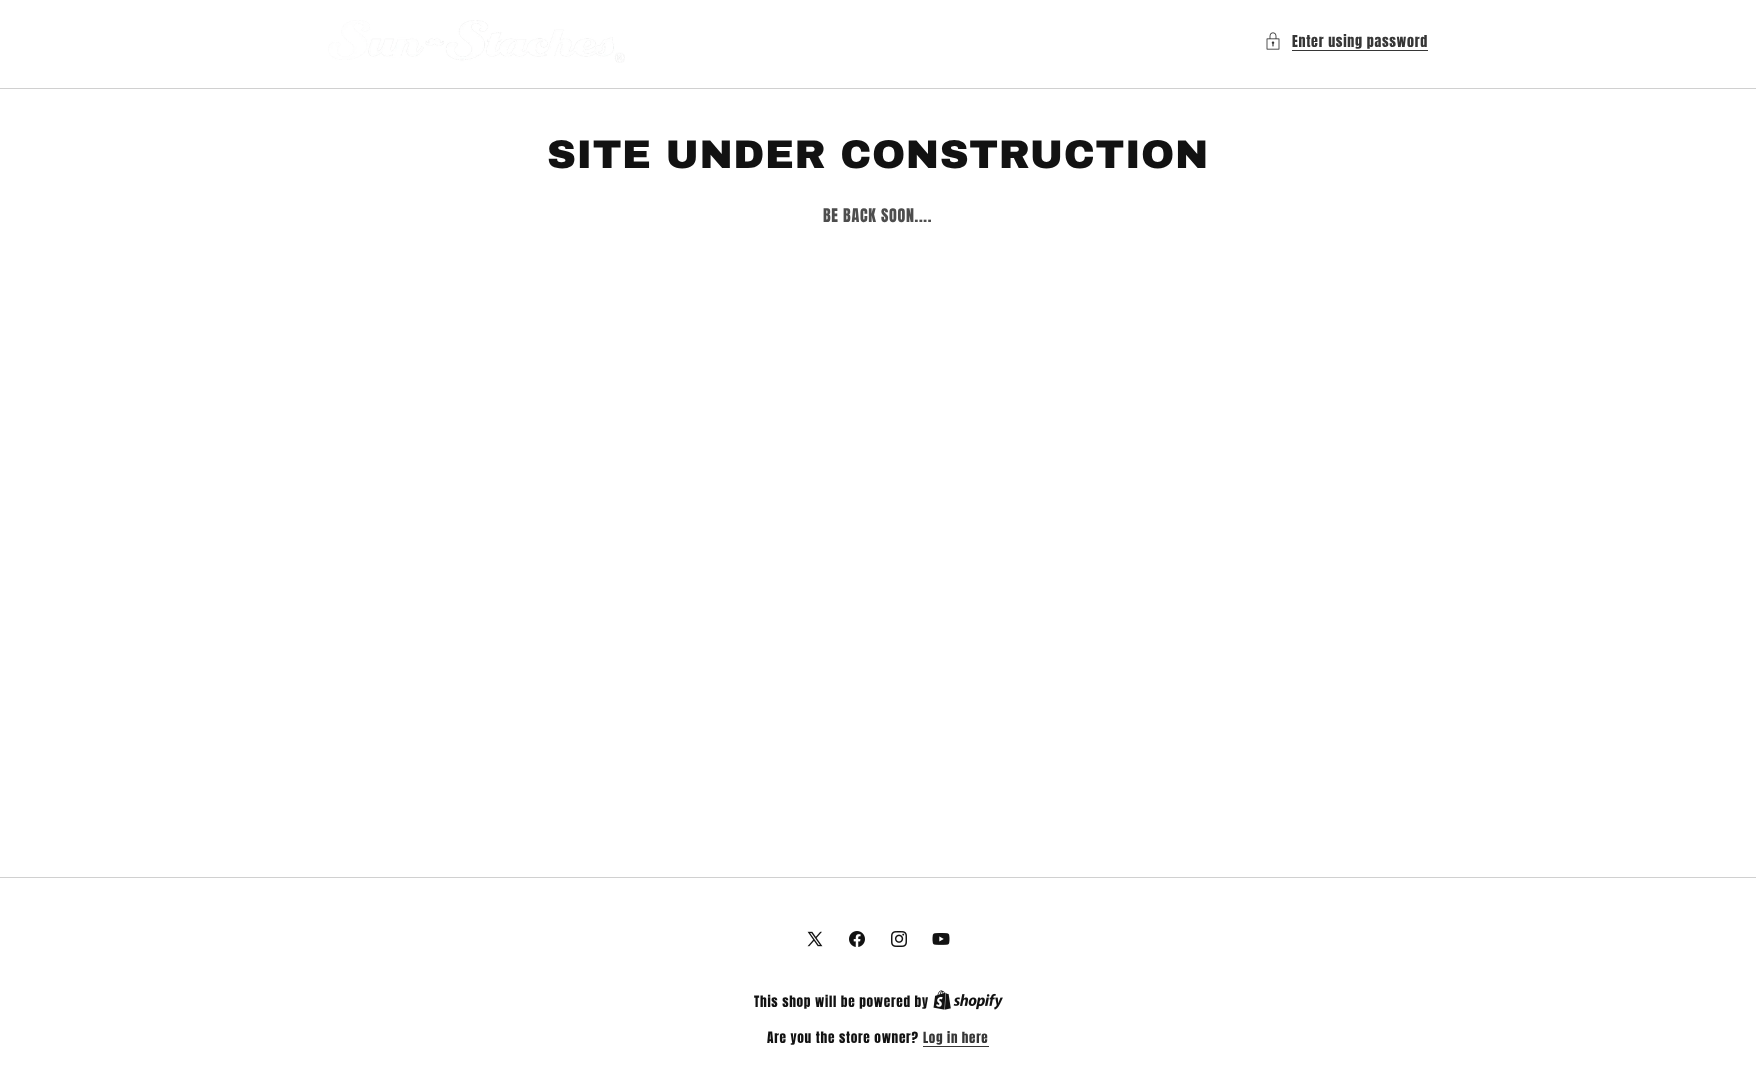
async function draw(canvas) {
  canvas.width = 1756;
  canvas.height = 1090;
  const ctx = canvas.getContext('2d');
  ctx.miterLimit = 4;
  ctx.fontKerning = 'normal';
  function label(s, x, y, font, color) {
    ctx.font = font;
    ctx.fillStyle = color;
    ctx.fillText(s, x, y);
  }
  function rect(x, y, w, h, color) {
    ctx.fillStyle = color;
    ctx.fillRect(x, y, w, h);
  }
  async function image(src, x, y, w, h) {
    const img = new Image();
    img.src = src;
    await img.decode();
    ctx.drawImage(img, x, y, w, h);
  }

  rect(0, 0, 1756, 1090, '#fff');
  await image('assets/img1.png', 328, 20, 297, 43);
  await image('assets/img2.png', 1266, 32, 14, 18);
  ctx.letterSpacing = '0.7px';
  label('Enter using password', 1292, 47, '14px Anton', '#363636');
  rect(1292, 50, 136, 1, '#363636');
  rect(0, 88, 1756, 1, '#d0d0d0');
  ctx.letterSpacing = '0.6px';
  label('SITE UNDER CONSTRUCTION', 547, 168, '40px Archivo Black', '#121212');
  ctx.letterSpacing = '0.7px';
  label('BE BACK SOON....', 823, 222, '16px Anton', '#4d4d4d');
  rect(0, 877, 1756, 1, '#d0d0d0');
  await image('assets/img3.png', 807, 931, 16, 16);
  await image('assets/img4.png', 849, 931, 16, 16);
  await image('assets/img5.png', 891, 931, 16, 16);
  await image('assets/img6.png', 932, 933, 18, 12);
  label('This shop will be powered by', 754, 1007, '13.3px Anton', '#121212');
  await image('assets/img7.png', 933, 990, 70, 20);
  label('Are you the store owner?', 767, 1043, '13.3px Anton', '#121212');
  label('Log in here', 923, 1043, '13px Anton', '#363636');
  rect(923, 1046, 66, 1, '#363636');
}

draw(document.querySelector('canvas'));
